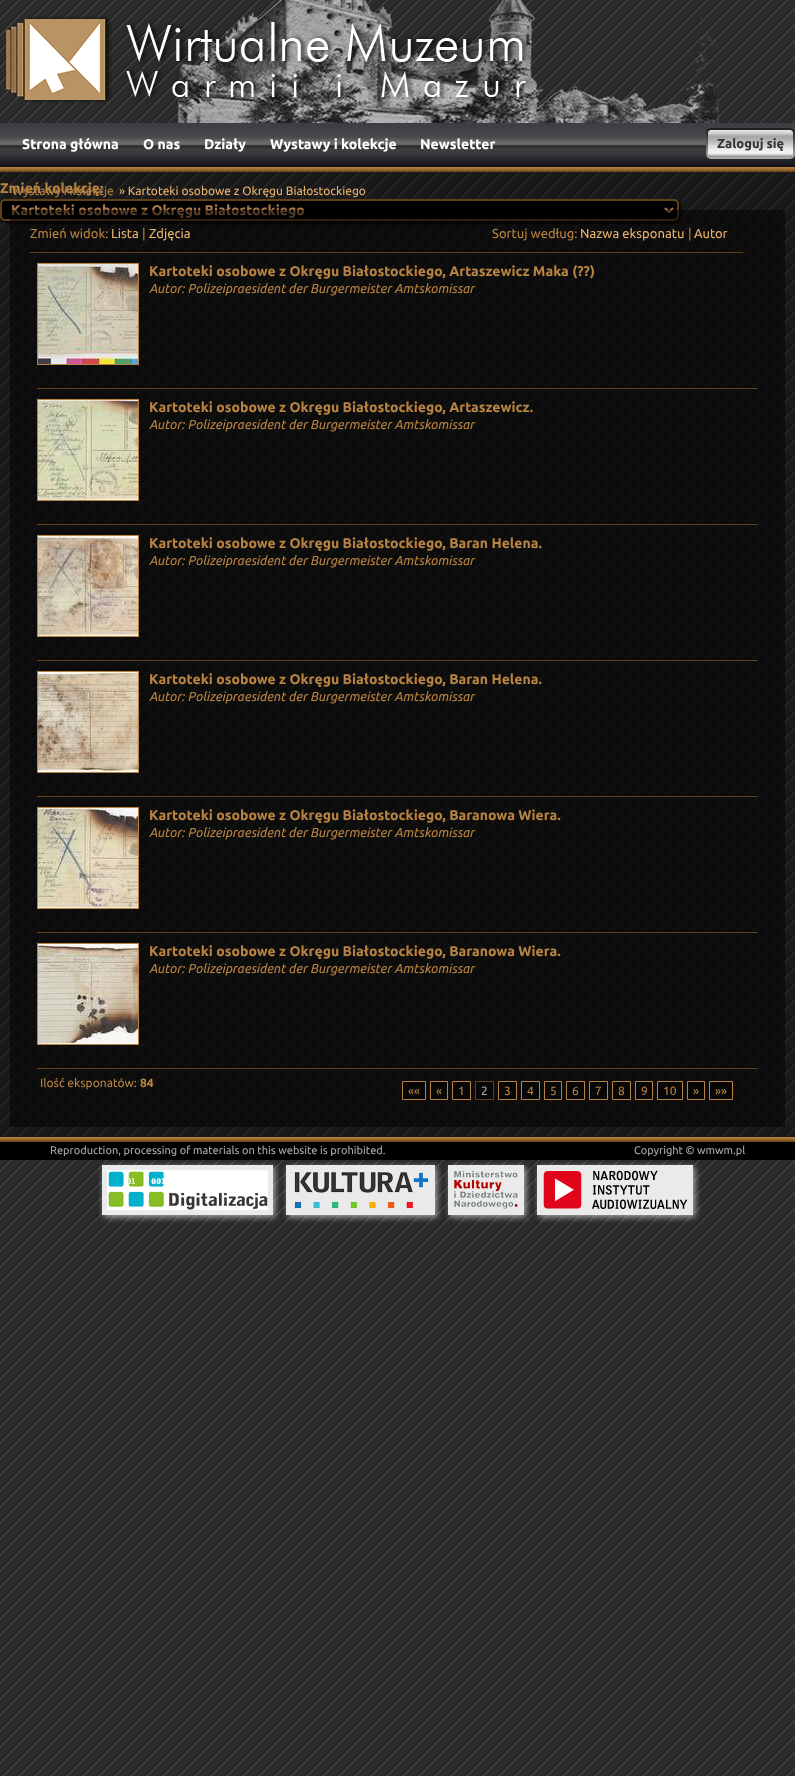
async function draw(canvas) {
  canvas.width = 795;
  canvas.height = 1776;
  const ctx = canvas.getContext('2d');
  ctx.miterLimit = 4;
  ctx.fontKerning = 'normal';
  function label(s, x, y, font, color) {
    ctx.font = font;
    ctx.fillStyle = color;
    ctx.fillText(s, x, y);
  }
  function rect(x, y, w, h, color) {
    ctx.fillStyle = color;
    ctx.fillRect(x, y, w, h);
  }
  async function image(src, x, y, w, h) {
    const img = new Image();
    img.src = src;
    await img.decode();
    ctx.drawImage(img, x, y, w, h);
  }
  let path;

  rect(0, 0, 795, 1776, '#fff');
  await image('assets/img1.png', 0, 0, 795, 1776);
  await image('assets/img2.png', 178, 0, 541, 123);
  await image('assets/img3.png', 6, 16, 525, 87);
  await image('assets/img4.png', 0, 123, 795, 44);
  label('Strona główna', 22, 149, 'bold 14px Ubuntu', '#fff');
  label('O nas', 143, 149, 'bold 14px Ubuntu', '#fff');
  label('Działy', 204, 149, 'bold 14px Ubuntu', '#fff');
  label('Wystawy i kolekcje', 270, 149, 'bold 14px Ubuntu', '#fff');
  label('Newsletter', 420, 149, 'bold 14px Ubuntu', '#fff');
  await image('assets/img5.png', 712, 128, 77, 31);
  await image('assets/img6.png', 706, 128, 6, 31);
  label('Zaloguj się', 717, 148, 'bold 13px Ubuntu', '#333');
  await image('assets/img7.png', 789, 128, 6, 31);
  await image('assets/img8.png', 0, 167, 795, 5);
  rect(0, 172, 795, 965, '#00000066');
  label('Wystawy i kolekcje', 12, 195, '12px Ubuntu', '#b88342');
  label('Zmień kolekcję:', 0, 193, 'bold 14px Ubuntu', '#b88342');
  ctx.fillStyle = '#000000e6';
  ctx.filter = 'blur(1px)';
  ctx.beginPath();
  ctx.roundRect(2, 201, 679, 22, 5);
  ctx.fill();
  ctx.filter = 'none';
  ctx.fillStyle = '#000';
  ctx.beginPath();
  ctx.roundRect(1, 200, 677, 20, 4);
  ctx.fill();
  ctx.strokeStyle = '#634118';
  ctx.lineWidth = 2;
  ctx.stroke();
  path = new Path2D('M665 208L669 212L673 208');
  ctx.strokeStyle = '#aa794a';
  ctx.stroke(path);
  label('Kartoteki osobowe z Okręgu Białostockiego', 11, 215, 'bold 14px Ubuntu', '#aa794a');
  label('» Kartoteki osobowe z Okręgu Białostockiego', 119, 195, '12px Ubuntu', '#e9b26e');
  rect(10, 210, 775, 917, '#00000080');
  rect(30, 252, 713, 1, '#634118');
  label('Zmień widok:', 30, 238, '13px Ubuntu', '#b88342');
  label('Lista', 111, 238, '13px Ubuntu', '#e9b26e');
  label('|', 142, 238, '13px Ubuntu', '#b88342');
  label('Zdjęcia', 149, 238, '13px Ubuntu', '#e9b26e');
  label('Sortuj według:', 492, 238, '13px Ubuntu', '#b88342');
  label('Nazwa eksponatu', 580, 238, '13px Ubuntu', '#e9b26e');
  label('|', 688, 238, '13px Ubuntu', '#b88342');
  label('Autor', 694, 238, '13px Ubuntu', '#e9b26e');
  rect(37, 388, 721, 1, '#634118');
  ctx.strokeStyle = '#b88342';
  ctx.lineWidth = 1;
  ctx.strokeRect(37.5, 263.5, 101, 101);
  await image('assets/img9.png', 38, 264, 100, 100);
  label('Kartoteki osobowe z Okręgu Białostockiego, Artaszewicz Maka (??)', 149, 276, 'bold 14px Ubuntu', '#b88342');
  label('Autor: Polizeipraesident der Burgermeister Amtskomissar', 149, 293, 'italic 13px Ubuntu', '#b88342');
  rect(37, 524, 721, 1, '#634118');
  ctx.strokeRect(37.5, 399.5, 101, 101);
  await image('assets/img10.png', 38, 400, 100, 100);
  label('Kartoteki osobowe z Okręgu Białostockiego, Artaszewicz.', 149, 412, 'bold 14px Ubuntu', '#b88342');
  label('Autor: Polizeipraesident der Burgermeister Amtskomissar', 149, 429, 'italic 13px Ubuntu', '#b88342');
  rect(37, 660, 721, 1, '#634118');
  ctx.strokeRect(37.5, 535.5, 101, 101);
  await image('assets/img11.png', 38, 536, 100, 100);
  label('Kartoteki osobowe z Okręgu Białostockiego, Baran Helena.', 149, 548, 'bold 14px Ubuntu', '#b88342');
  label('Autor: Polizeipraesident der Burgermeister Amtskomissar', 149, 565, 'italic 13px Ubuntu', '#b88342');
  rect(37, 796, 721, 1, '#634118');
  ctx.strokeRect(37.5, 671.5, 101, 101);
  await image('assets/img12.png', 38, 672, 100, 100);
  label('Kartoteki osobowe z Okręgu Białostockiego, Baran Helena.', 149, 684, 'bold 14px Ubuntu', '#b88342');
  label('Autor: Polizeipraesident der Burgermeister Amtskomissar', 149, 701, 'italic 13px Ubuntu', '#b88342');
  rect(37, 932, 721, 1, '#634118');
  ctx.strokeRect(37.5, 807.5, 101, 101);
  await image('assets/img13.png', 38, 808, 100, 100);
  label('Kartoteki osobowe z Okręgu Białostockiego, Baranowa Wiera.', 149, 820, 'bold 14px Ubuntu', '#b88342');
  label('Autor: Polizeipraesident der Burgermeister Amtskomissar', 149, 837, 'italic 13px Ubuntu', '#b88342');
  rect(37, 1068, 721, 1, '#634118');
  ctx.strokeRect(37.5, 943.5, 101, 101);
  await image('assets/img14.png', 38, 944, 100, 100);
  label('Kartoteki osobowe z Okręgu Białostockiego, Baranowa Wiera.', 149, 956, 'bold 14px Ubuntu', '#b88342');
  label('Autor: Polizeipraesident der Burgermeister Amtskomissar', 149, 973, 'italic 13px Ubuntu', '#b88342');
  label('Ilość eksponatów:', 40, 1087, '12px Ubuntu', '#b88342');
  label('84', 140, 1087, 'bold 12px Ubuntu', '#b88342');
  ctx.fillStyle = '#00000066';
  ctx.beginPath();
  ctx.rect(402.5, 1081.5, 23, 18);
  ctx.fill();
  ctx.stroke();
  label('««', 408, 1095, '12px Ubuntu', '#b88342');
  ctx.fillStyle = '#00000066';
  ctx.beginPath();
  ctx.rect(430.5, 1081.5, 17, 18);
  ctx.fill();
  ctx.stroke();
  label('«', 436, 1095, '12px Ubuntu', '#b88342');
  ctx.fillStyle = '#00000066';
  ctx.beginPath();
  ctx.rect(452.5, 1081.5, 18, 18);
  ctx.fill();
  ctx.stroke();
  label('1', 458, 1095, '12px Ubuntu', '#b88342');
  ctx.fillStyle = '#00000066';
  ctx.beginPath();
  ctx.rect(475.5, 1081.5, 18, 18);
  ctx.fill();
  ctx.strokeStyle = '#634118';
  ctx.stroke();
  label('2', 481, 1095, '12px Ubuntu', '#aaa');
  ctx.fillStyle = '#00000066';
  ctx.beginPath();
  ctx.rect(498.5, 1081.5, 18, 18);
  ctx.fill();
  ctx.strokeStyle = '#b88342';
  ctx.stroke();
  label('3', 504, 1095, '12px Ubuntu', '#b88342');
  ctx.fillStyle = '#00000066';
  ctx.beginPath();
  ctx.rect(521.5, 1081.5, 18, 18);
  ctx.fill();
  ctx.stroke();
  label('4', 527, 1095, '12px Ubuntu', '#b88342');
  ctx.fillStyle = '#00000066';
  ctx.beginPath();
  ctx.rect(544.5, 1081.5, 17, 18);
  ctx.fill();
  ctx.stroke();
  label('5', 550, 1095, '12px Ubuntu', '#b88342');
  ctx.fillStyle = '#00000066';
  ctx.beginPath();
  ctx.rect(566.5, 1081.5, 18, 18);
  ctx.fill();
  ctx.stroke();
  label('6', 572, 1095, '12px Ubuntu', '#b88342');
  ctx.fillStyle = '#00000066';
  ctx.beginPath();
  ctx.rect(589.5, 1081.5, 18, 18);
  ctx.fill();
  ctx.stroke();
  label('7', 595, 1095, '12px Ubuntu', '#b88342');
  ctx.fillStyle = '#00000066';
  ctx.beginPath();
  ctx.rect(612.5, 1081.5, 18, 18);
  ctx.fill();
  ctx.stroke();
  label('8', 618, 1095, '12px Ubuntu', '#b88342');
  ctx.fillStyle = '#00000066';
  ctx.beginPath();
  ctx.rect(635.5, 1081.5, 17, 18);
  ctx.fill();
  ctx.stroke();
  label('9', 641, 1095, '12px Ubuntu', '#b88342');
  ctx.fillStyle = '#00000066';
  ctx.beginPath();
  ctx.rect(657.5, 1081.5, 25, 18);
  ctx.fill();
  ctx.stroke();
  label('10', 663, 1095, '12px Ubuntu', '#b88342');
  ctx.fillStyle = '#00000066';
  ctx.beginPath();
  ctx.rect(687.5, 1081.5, 17, 18);
  ctx.fill();
  ctx.stroke();
  label('»', 693, 1095, '12px Ubuntu', '#b88342');
  ctx.fillStyle = '#00000066';
  ctx.beginPath();
  ctx.rect(709.5, 1081.5, 23, 18);
  ctx.fill();
  ctx.stroke();
  label('»»', 715, 1095, '12px Ubuntu', '#b88342');
  await image('assets/img8.png', 0, 1137, 795, 5);
  ctx.save();
  path = new Path2D('M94 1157H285V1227H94ZM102 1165H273V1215H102Z');
  ctx.clip(path, 'evenodd');
  ctx.fillStyle = '#ffffff99';
  ctx.filter = 'blur(3px)';
  ctx.beginPath();
  ctx.rect(104, 1167, 171, 50);
  ctx.fill();
  ctx.filter = 'none';
  ctx.restore();
  ctx.save();
  path = new Path2D('M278 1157H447V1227H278ZM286 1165H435V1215H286Z');
  ctx.clip(path, 'evenodd');
  ctx.fillStyle = '#ffffff99';
  ctx.filter = 'blur(3px)';
  ctx.beginPath();
  ctx.rect(288, 1167, 149, 50);
  ctx.fill();
  ctx.filter = 'none';
  ctx.restore();
  ctx.save();
  path = new Path2D('M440 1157H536V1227H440ZM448 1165H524V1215H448Z');
  ctx.clip(path, 'evenodd');
  ctx.fillStyle = '#ffffff99';
  ctx.filter = 'blur(3px)';
  ctx.beginPath();
  ctx.rect(450, 1167, 76, 50);
  ctx.fill();
  ctx.filter = 'none';
  ctx.restore();
  ctx.save();
  path = new Path2D('M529 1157H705V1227H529ZM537 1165H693V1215H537Z');
  ctx.clip(path, 'evenodd');
  ctx.fillStyle = '#ffffff99';
  ctx.filter = 'blur(3px)';
  ctx.beginPath();
  ctx.rect(539, 1167, 156, 50);
  ctx.fill();
  ctx.filter = 'none';
  ctx.restore();
  rect(0, 1142, 795, 18, '#000');
  label('Reproduction, processing of materials on this website is prohibited.', 50, 1154, '11px Ubuntu', '#aaa');
  label('Copyright © wmwm.pl', 634, 1154, '11px Ubuntu', '#aaa');
  rect(102, 1165, 171, 50, '#ffffffe6');
  rect(286, 1165, 149, 50, '#ffffffe6');
  rect(448, 1165, 76, 50, '#ffffffe6');
  rect(537, 1165, 156, 50, '#ffffffe6');
  await image('assets/img15.png', 107, 1170, 161, 40);
  await image('assets/img16.png', 294, 1172, 135, 37);
  await image('assets/img17.png', 454, 1171, 64, 38);
  await image('assets/img18.png', 543, 1170, 145, 39);
}

draw(document.querySelector('canvas'));
